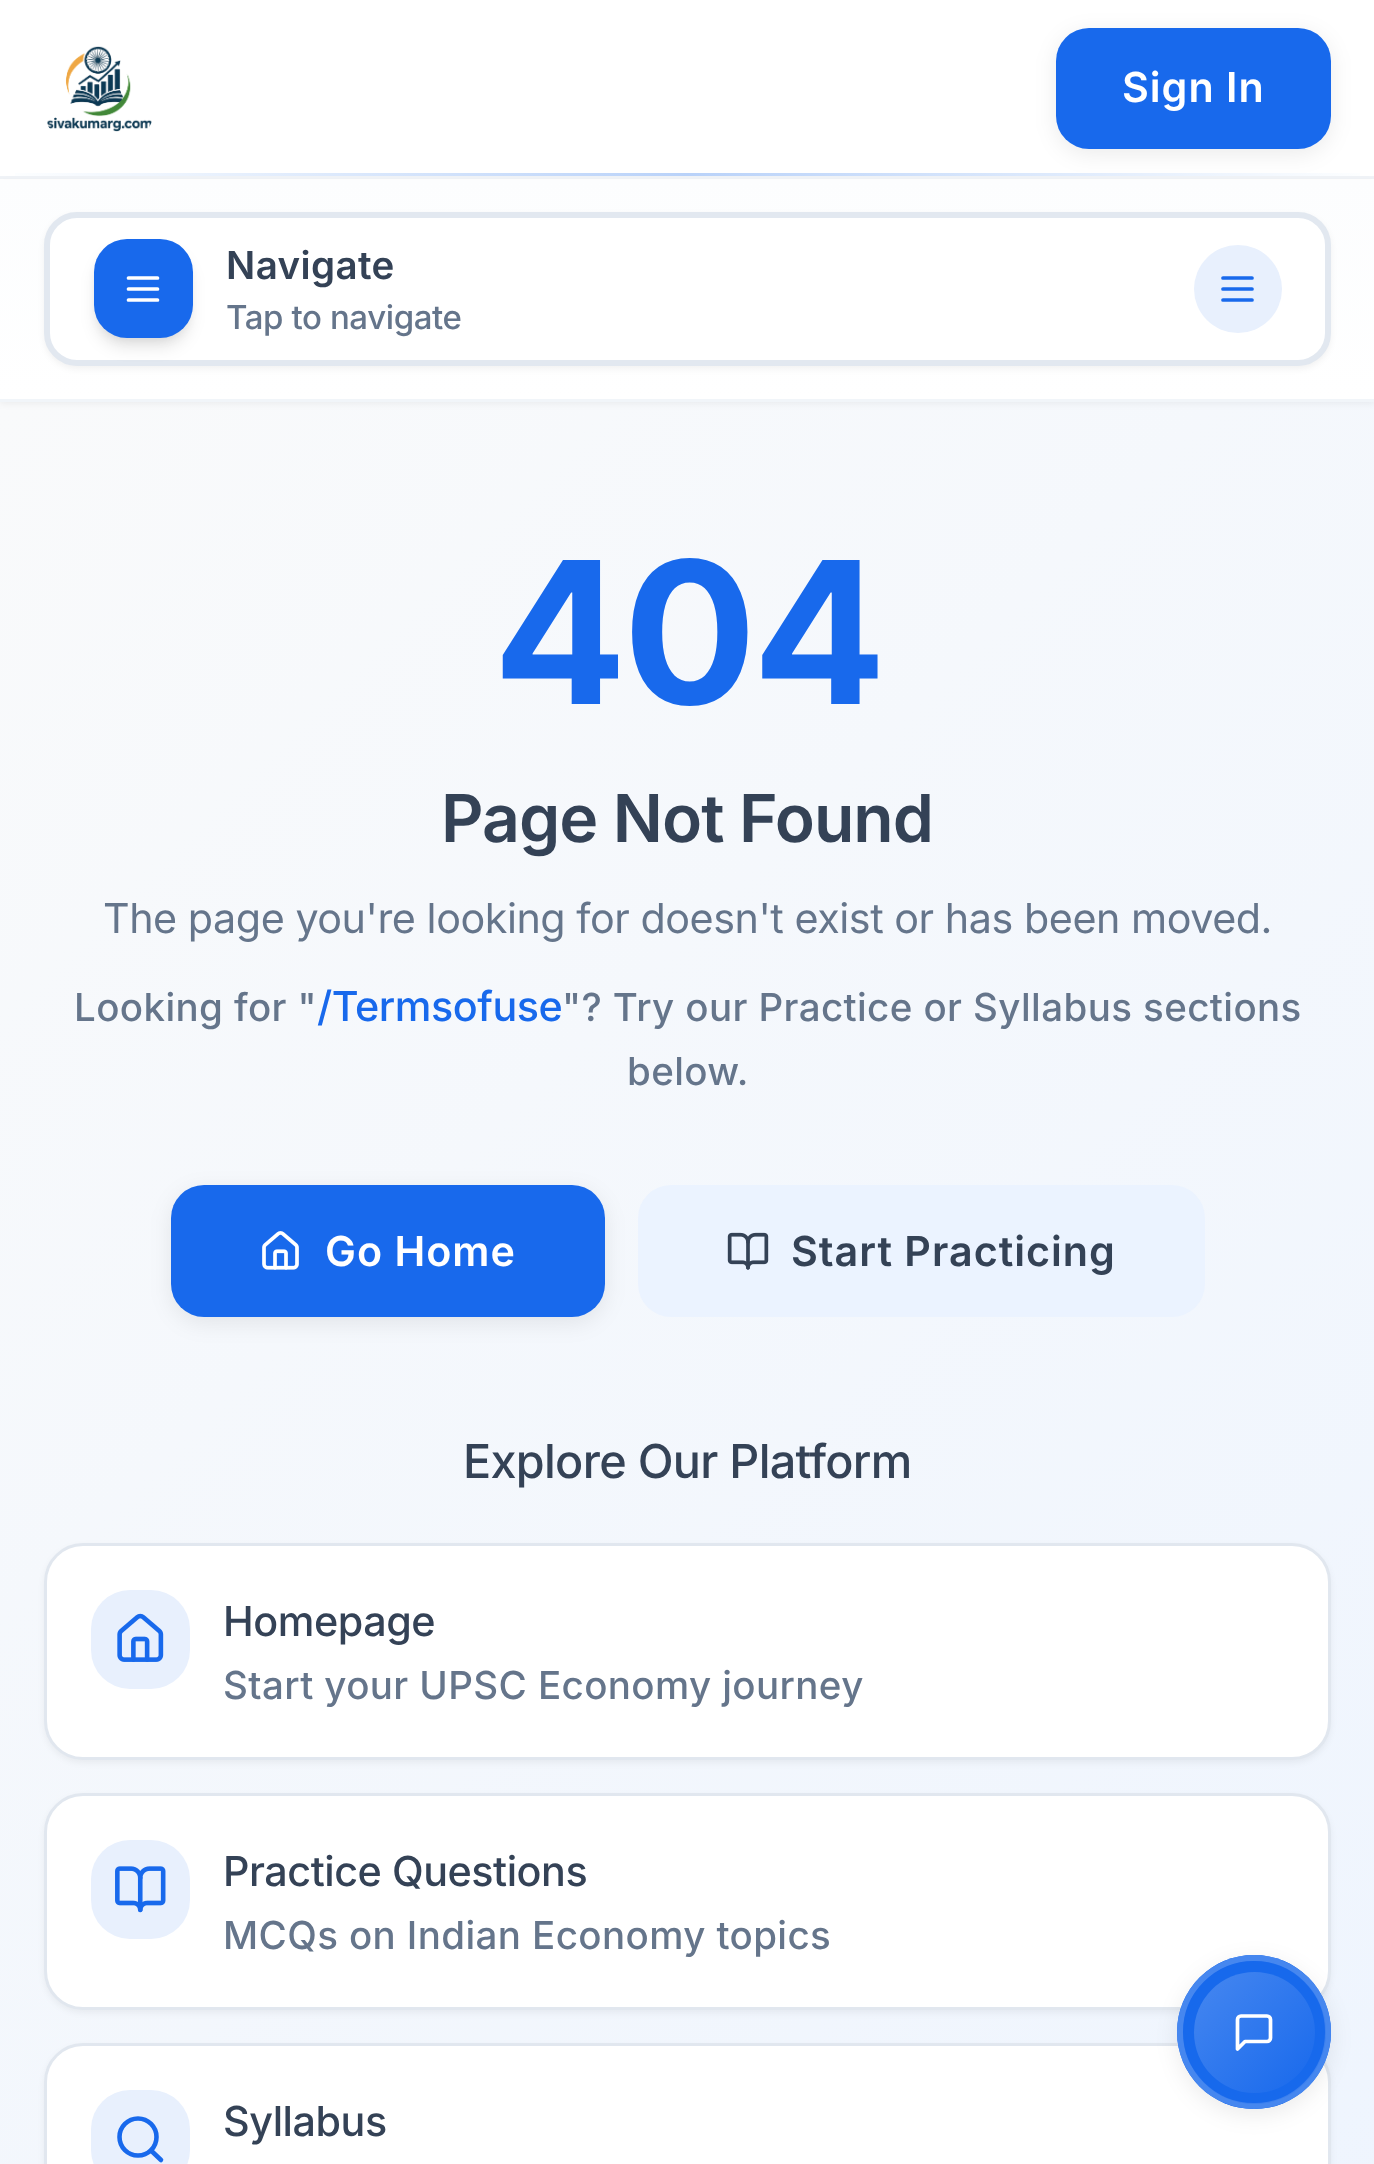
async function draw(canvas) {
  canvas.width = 1374;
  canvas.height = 2164;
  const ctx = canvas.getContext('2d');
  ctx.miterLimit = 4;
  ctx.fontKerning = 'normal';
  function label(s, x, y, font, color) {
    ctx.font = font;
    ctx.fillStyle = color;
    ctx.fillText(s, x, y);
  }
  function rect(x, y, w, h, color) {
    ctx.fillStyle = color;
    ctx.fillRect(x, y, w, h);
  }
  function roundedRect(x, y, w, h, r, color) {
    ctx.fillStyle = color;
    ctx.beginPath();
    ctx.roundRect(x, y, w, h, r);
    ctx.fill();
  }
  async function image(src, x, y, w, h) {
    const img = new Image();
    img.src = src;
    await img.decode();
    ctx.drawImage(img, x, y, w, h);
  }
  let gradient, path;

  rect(0, 0, 1374, 2164, '#fff');
  gradient = ctx.createLinearGradient(-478, 479, 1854, 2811);
  gradient.addColorStop(0, '#f9fafb');
  gradient.addColorStop(1, '#ebf3ff');
  ctx.fillStyle = gradient;
  ctx.fillRect(0, 0, 1374, 173);
  rect(0, 0, 1374, 173, '#fffffff2');
  rect(0, 176, 1374, 3, '#f0f3f7');
  await image('assets/img1.png', 47, 46, 105, 86);
  ctx.fillStyle = '#00000014';
  ctx.filter = 'blur(11px)';
  ctx.beginPath();
  ctx.roundRect(1056, 33, 275, 121, 33);
  ctx.fill();
  ctx.filter = 'none';
  roundedRect(1056, 28, 275, 121, 33, '#1869ec');
  ctx.letterSpacing = '1px';
  label('Sign In', 1122, 102, '600 41.25px Inter', '#fff');
  gradient = ctx.createLinearGradient(0, 175, 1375, 175);
  gradient.addColorStop(0, '#feffff');
  gradient.addColorStop(0.5, '#b9d2f9');
  gradient.addColorStop(1, '#feffff');
  ctx.fillStyle = gradient;
  ctx.fillRect(15, 173, 1345, 3);
  gradient = ctx.createLinearGradient(-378, 780, 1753, 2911);
  gradient.addColorStop(0, '#f9fafb');
  gradient.addColorStop(1, '#ebf3ff');
  ctx.fillStyle = gradient;
  ctx.fillRect(0, 402, 1374, 1762);
  ctx.fillStyle = '#0000000d';
  ctx.filter = 'blur(3px)';
  ctx.beginPath();
  ctx.rect(0, 182, 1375, 222);
  ctx.fill();
  ctx.filter = 'none';
  rect(0, 399, 1374, 3, '#f1f5f9');
  gradient = ctx.createLinearGradient(688, 179, 688, 399);
  gradient.addColorStop(0, '#fcfdfe');
  gradient.addColorStop(1, '#fff');
  ctx.fillStyle = gradient;
  ctx.fillRect(0, 180, 1374, 219);
  ctx.fillStyle = '#0000000d';
  ctx.filter = 'blur(3px)';
  ctx.beginPath();
  ctx.roundRect(44, 215, 1287, 154, 33);
  ctx.fill();
  ctx.filter = 'none';
  ctx.fillStyle = '#fff';
  ctx.beginPath();
  ctx.roundRect(47, 215, 1281, 148, 30);
  ctx.fill();
  ctx.strokeStyle = '#e2e8f0';
  ctx.lineWidth = 6;
  ctx.stroke();
  ctx.fillStyle = '#0000001a';
  ctx.filter = 'blur(5.5px)';
  ctx.beginPath();
  ctx.roundRect(99, 250, 88, 88, 28);
  ctx.fill();
  ctx.filter = 'none';
  ctx.filter = 'blur(8px)';
  ctx.beginPath();
  ctx.roundRect(96, 253, 94, 94, 30);
  ctx.fill();
  ctx.filter = 'none';
  roundedRect(94, 239, 99, 99, 33, '#1869ec');
  path = new Path2D('M128.5 289H157.5M128.5 278H157.5M128.5 300H157.5');
  ctx.strokeStyle = '#fff';
  ctx.lineWidth = 3.7;
  ctx.lineCap = 'round';
  ctx.lineJoin = 'round';
  ctx.stroke(path);
  ctx.letterSpacing = '0.4px';
  label('Navigate', 226, 279, '600 38.5px Inter', '#344256');
  ctx.letterSpacing = '-0.4px';
  label('Tap to navigate', 226, 329, '500 33px Inter', '#65758b');
  ctx.fillStyle = '#e8f0fd';
  ctx.beginPath();
  ctx.arc(1238, 289, 44, 0, 2 * Math.PI);
  ctx.fill();
  path = new Path2D('M1223 289H1252M1223 278H1252M1223 300H1252');
  ctx.strokeStyle = '#1869ec';
  ctx.stroke(path);
  ctx.letterSpacing = '-4px';
  label('404', 493, 704, 'bold 198px Inter', '#1869ec');
  ctx.letterSpacing = '-1px';
  label('Page Not Found', 441, 842, '600 66px Inter', '#344256');
  ctx.letterSpacing = '-0.45px';
  label('The page you\'re looking for doesn\'t exist or has been moved.', 103, 933, '41.25px Inter', '#65758b');
  ctx.letterSpacing = '0.4px';
  label('Looking for "', 74, 1021, '500 38.5px Inter', '#65758b');
  ctx.letterSpacing = '-0.45px';
  label('/Termsofuse', 317, 1021, '500 41.25px Inter', '#1869ec');
  ctx.letterSpacing = '0.4px';
  label('"? Try our Practice or Syllabus sections', 562, 1021, '500 38.5px Inter', '#65758b');
  label('below.', 627, 1085, '500 38.5px Inter', '#65758b');
  ctx.fillStyle = '#00000014';
  ctx.filter = 'blur(11px)';
  ctx.beginPath();
  ctx.roundRect(171, 1191, 434, 132, 33);
  ctx.fill();
  ctx.filter = 'none';
  roundedRect(171, 1185, 434, 132, 33, '#1869ec');
  await image('assets/img2.png', 262, 1231, 37, 39);
  ctx.letterSpacing = '1px';
  label('Go Home', 325, 1266, '600 41.25px Inter', '#fff');
  roundedRect(638, 1185, 567, 132, 33, '#ebf3ff');
  await image('assets/img3.png', 727, 1232, 42, 38);
  label('Start Practicing', 791, 1266, '600 41.25px Inter', '#344256');
  ctx.letterSpacing = '-0.7px';
  label('Explore Our Platform', 463, 1478, '500 46.75px Inter', '#344256');
  ctx.fillStyle = '#0000000d';
  ctx.filter = 'blur(3px)';
  ctx.beginPath();
  ctx.roundRect(44, 1546, 1287, 217, 39);
  ctx.fill();
  ctx.filter = 'none';
  ctx.fillStyle = '#fff';
  ctx.beginPath();
  ctx.roundRect(45.5, 1544.5, 1284, 214, 37.5);
  ctx.fill();
  ctx.strokeStyle = '#e1e7ef';
  ctx.lineWidth = 3;
  ctx.lineJoin = 'miter';
  ctx.stroke();
  roundedRect(91, 1590, 99, 99, 39, '#e8f0fd');
  await image('assets/img4.png', 117, 1613, 47, 49);
  ctx.letterSpacing = '-0.45px';
  label('Homepage', 223, 1636, '500 41.25px Inter', '#344256');
  ctx.letterSpacing = '0.4px';
  label('Start your UPSC Economy journey', 223, 1699, '500 38.5px Inter', '#65758b');
  ctx.fillStyle = '#0000000d';
  ctx.filter = 'blur(3px)';
  ctx.beginPath();
  ctx.roundRect(44, 1796, 1287, 217, 39);
  ctx.fill();
  ctx.filter = 'none';
  ctx.fillStyle = '#fff';
  ctx.beginPath();
  ctx.roundRect(45.5, 1794.5, 1284, 214, 37.5);
  ctx.fill();
  ctx.stroke();
  roundedRect(91, 1840, 99, 99, 39, '#e8f0fd');
  await image('assets/img5.png', 115, 1866, 51, 47);
  ctx.letterSpacing = '-0.45px';
  label('Practice Questions', 223, 1886, '500 41.25px Inter', '#344256');
  ctx.letterSpacing = '0.4px';
  label('MCQs on Indian Economy topics', 223, 1949, '500 38.5px Inter', '#65758b');
  ctx.fillStyle = '#0000000d';
  ctx.filter = 'blur(3px)';
  ctx.beginPath();
  ctx.roundRect(44, 2046, 1287, 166, 39);
  ctx.fill();
  ctx.filter = 'none';
  ctx.fillStyle = '#fff';
  ctx.beginPath();
  ctx.roundRect(45.5, 2044.5, 1284, 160, 37.5);
  ctx.fill();
  ctx.stroke();
  roundedRect(91, 2090, 99, 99, 39, '#e8f0fd');
  ctx.beginPath();
  ctx.arc(138, 2137, 18.5, 0, 2 * Math.PI);
  ctx.strokeStyle = '#1869ec';
  ctx.lineWidth = 4.6;
  ctx.stroke();
  path = new Path2D('M161 2160L151 2150.5');
  ctx.lineJoin = 'round';
  ctx.stroke(path);
  ctx.letterSpacing = '-0.45px';
  label('Syllabus', 223, 2136, '500 41.25px Inter', '#344256');
  ctx.fillStyle = '#00000014';
  ctx.filter = 'blur(11px)';
  ctx.beginPath();
  ctx.roundRect(1177, 1961, 154, 154, 77);
  ctx.fill();
  ctx.filter = 'none';
  ctx.fillStyle = '#1869ec';
  ctx.beginPath();
  ctx.arc(1254, 2032, 77, 0, 2 * Math.PI);
  ctx.fill();
  ctx.save();
  ctx.beginPath();
  ctx.roundRect(1177, 1955, 154, 154, 77);
  ctx.clip();
  gradient = ctx.createLinearGradient(1183, 1818, 1326, 1961);
  gradient.addColorStop(0, '#1869ec');
  gradient.addColorStop(0.5, '#1869ec');
  gradient.addColorStop(1, '#1869eccc');
  ctx.fillStyle = gradient;
  ctx.fillRect(1224, 1955, 60, 6);
  gradient = ctx.createLinearGradient(1040, 1961, 1183, 2104);
  gradient.addColorStop(0, '#1869ec');
  gradient.addColorStop(0.5, '#1869ec');
  gradient.addColorStop(1, '#1869eccc');
  ctx.fillStyle = gradient;
  ctx.fillRect(1177, 2002, 6, 60);
  gradient = ctx.createLinearGradient(1183, 1961, 1326, 2104);
  gradient.addColorStop(0, '#1869ec');
  gradient.addColorStop(0.5, '#1869ec');
  gradient.addColorStop(1, '#1869eccc');
  ctx.fillStyle = gradient;
  ctx.fillRect(1183, 1961, 143, 143);
  gradient = ctx.createLinearGradient(1326, 1961, 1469, 2104);
  gradient.addColorStop(0, '#1869ec');
  gradient.addColorStop(0.5, '#1869ec');
  gradient.addColorStop(1, '#1869eccc');
  ctx.fillStyle = gradient;
  ctx.fillRect(1326, 2005, 5, 54);
  gradient = ctx.createLinearGradient(1183, 2104, 1326, 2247);
  gradient.addColorStop(0, '#1869ec');
  gradient.addColorStop(0.5, '#1869ec');
  gradient.addColorStop(1, '#1869eccc');
  ctx.fillStyle = gradient;
  ctx.fillRect(1227, 2104, 54, 5);
  ctx.restore();
  ctx.beginPath();
  ctx.arc(1254, 2032, 74, 0, 2 * Math.PI);
  ctx.strokeStyle = '#ffffff33';
  ctx.lineWidth = 6;
  ctx.stroke();
  ctx.fillStyle = '#1869ec38';
  ctx.beginPath();
  ctx.arc(1254.5, 2032.5, 71.5, 0, 2 * Math.PI);
  ctx.fill();
  gradient = ctx.createLinearGradient(1194, 1972, 1315, 2093);
  gradient.addColorStop(0, '#4687f0');
  gradient.addColorStop(1, '#1869ec');
  ctx.fillStyle = gradient;
  ctx.beginPath();
  ctx.arc(1254.5, 2032.5, 60.5, 0, 2 * Math.PI);
  ctx.fill();
  path = new Path2D('M1270.5 2038C1270.5 2040 1269 2041.5 1267 2041.5H1245L1237.5 2049V2019.5C1237.5 2017.5 1239 2016 1241 2016H1267C1269 2016 1270.5 2017.5 1270.5 2019.5Z');
  ctx.strokeStyle = '#fff';
  ctx.lineWidth = 3.7;
  ctx.stroke(path);
}

draw(document.querySelector('canvas'));
